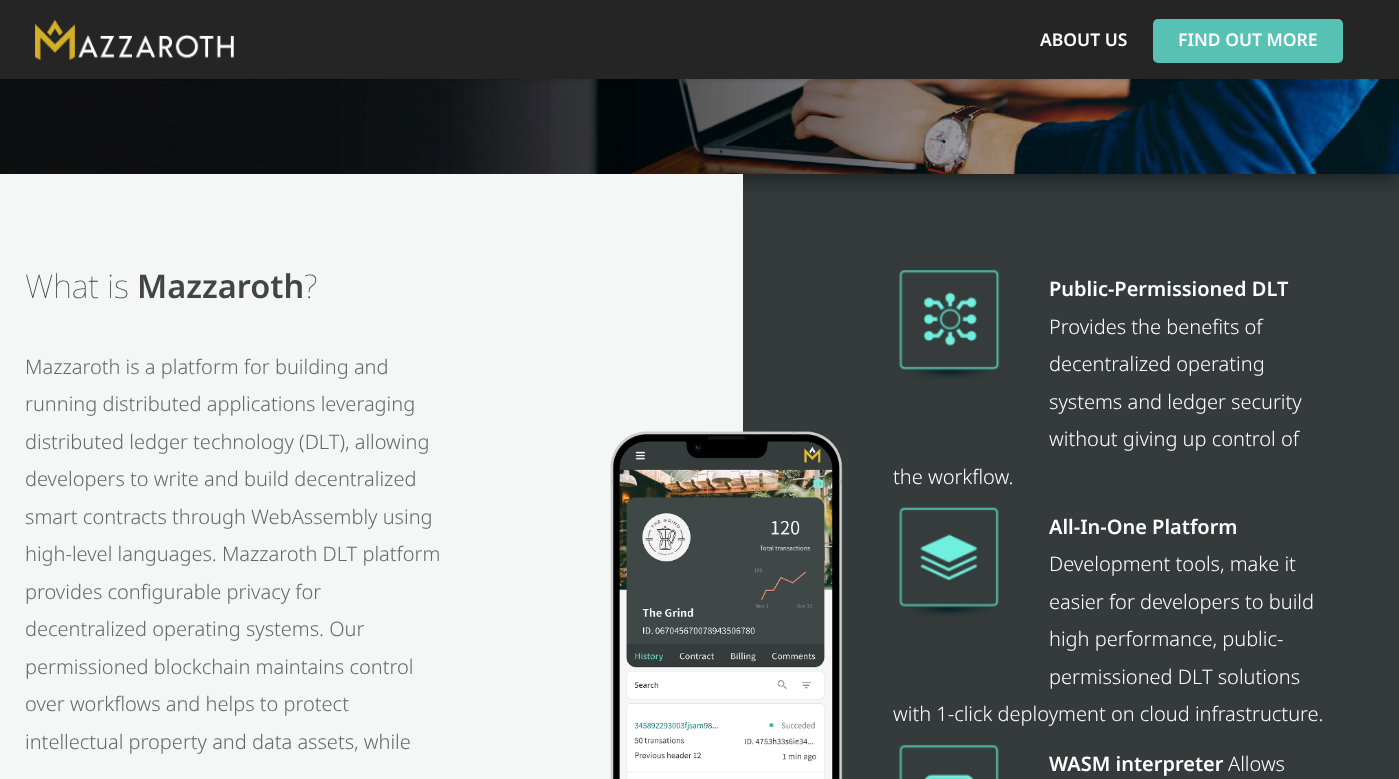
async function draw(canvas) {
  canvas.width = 1399;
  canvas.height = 779;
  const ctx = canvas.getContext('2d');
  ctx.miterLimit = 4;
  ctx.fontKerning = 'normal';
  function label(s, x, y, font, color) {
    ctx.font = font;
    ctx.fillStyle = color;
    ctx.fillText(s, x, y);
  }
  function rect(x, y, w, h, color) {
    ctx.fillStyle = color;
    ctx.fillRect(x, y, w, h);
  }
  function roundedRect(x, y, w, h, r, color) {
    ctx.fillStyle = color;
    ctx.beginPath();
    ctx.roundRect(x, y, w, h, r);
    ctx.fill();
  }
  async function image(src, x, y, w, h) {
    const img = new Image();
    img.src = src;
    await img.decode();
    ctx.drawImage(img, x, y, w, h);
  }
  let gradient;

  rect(0, 0, 1399, 779, '#fff');
  gradient = ctx.createLinearGradient(-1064, 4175, 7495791, -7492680);
  gradient.addColorStop(0, '#212526');
  gradient.addColorStop(0, '#353b3b');
  gradient.addColorStop(1, '#020024');
  ctx.fillStyle = gradient;
  ctx.fillRect(743, 174, 656, 605);
  ctx.fillStyle = '#1c2120';
  ctx.filter = 'blur(9.5px)';
  ctx.beginPath();
  ctx.rect(0, -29, 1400, 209);
  ctx.fill();
  ctx.filter = 'none';
  await image('assets/img2.png', 0, 79, 1399, 95);
  ctx.fillStyle = '#00000038';
  ctx.filter = 'blur(2px)';
  ctx.beginPath();
  ctx.rect(0, 0, 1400, 79);
  ctx.fill();
  ctx.filter = 'none';
  rect(0, 0, 1399, 79, '#252525');
  await image('assets/img1.png', 35, 19, 199, 41);
  label('ABOUT US', 1040, 46, '600 17.5px Noto Sans', '#fff');
  roundedRect(1153, 19, 190, 44, 5, '#57c1b4');
  label('FIND OUT MORE', 1178, 46, '600 17.5px Noto Sans', '#fff');
  rect(0, 174, 743, 605, '#f5f6f6');
  label('What is', 25, 298, '100 32.5px Noto Sans', '#444');
  label('Mazzaroth', 137, 298, '600 32.5px Noto Sans', '#444');
  label('?', 304, 298, '100 32.5px Noto Sans', '#444');
  label('Mazzaroth is a platform for building and', 25, 374, '300 20px Noto Sans', '#676767');
  label('running distributed applications leveraging', 25, 411, '300 20px Noto Sans', '#676767');
  label('distributed ledger technology (DLT), allowing', 25, 449, '300 20px Noto Sans', '#676767');
  label('developers to write and build decentralized', 25, 486, '300 20px Noto Sans', '#676767');
  label('smart contracts through WebAssembly using', 25, 524, '300 20px Noto Sans', '#676767');
  label('high-level languages. Mazzaroth DLT platform', 25, 561, '300 20px Noto Sans', '#676767');
  label('provides configurable privacy for', 25, 599, '300 20px Noto Sans', '#676767');
  label('decentralized operating systems. Our', 25, 636, '300 20px Noto Sans', '#676767');
  label('permissioned blockchain maintains control', 25, 674, '300 20px Noto Sans', '#676767');
  label('over workflows and helps to protect', 25, 711, '300 20px Noto Sans', '#676767');
  label('intellectual property and data assets, while', 25, 749, '300 20px Noto Sans', '#676767');
  await image('assets/img3.png', 610, 431, 233, 348);
  await image('assets/img4.png', 899, 270, 101, 110);
  label('Public-Permissioned DLT', 1049, 296, '600 20px Noto Sans', '#fff');
  label('Provides the benefits of', 1049, 334, '300 20px Noto Sans', '#fff');
  label('decentralized operating', 1049, 371, '300 20px Noto Sans', '#fff');
  label('systems and ledger security', 1049, 409, '300 20px Noto Sans', '#fff');
  label('without giving up control of', 1049, 446, '300 20px Noto Sans', '#fff');
  label('the workflow.', 893, 484, '300 20px Noto Sans', '#fff');
  await image('assets/img5.png', 899, 507, 100, 110);
  label('All-In-One Platform', 1049, 534, '600 20px Noto Sans', '#fff');
  label('Development tools, make it', 1049, 571, '300 20px Noto Sans', '#fff');
  label('easier for developers to build', 1049, 609, '300 20px Noto Sans', '#fff');
  label('high performance, public-', 1049, 646, '300 20px Noto Sans', '#fff');
  label('permissioned DLT solutions', 1049, 684, '300 20px Noto Sans', '#fff');
  label('with 1-click deployment on cloud infrastructure.', 893, 721, '300 20px Noto Sans', '#fff');
  await image('assets/img6.png', 899, 745, 100, 34);
  label('WASM interpreter', 1049, 771, '600 20px Noto Sans', '#fff');
  label('Allows', 1228, 771, '300 20px Noto Sans', '#fff');
}

draw(document.querySelector('canvas'));
